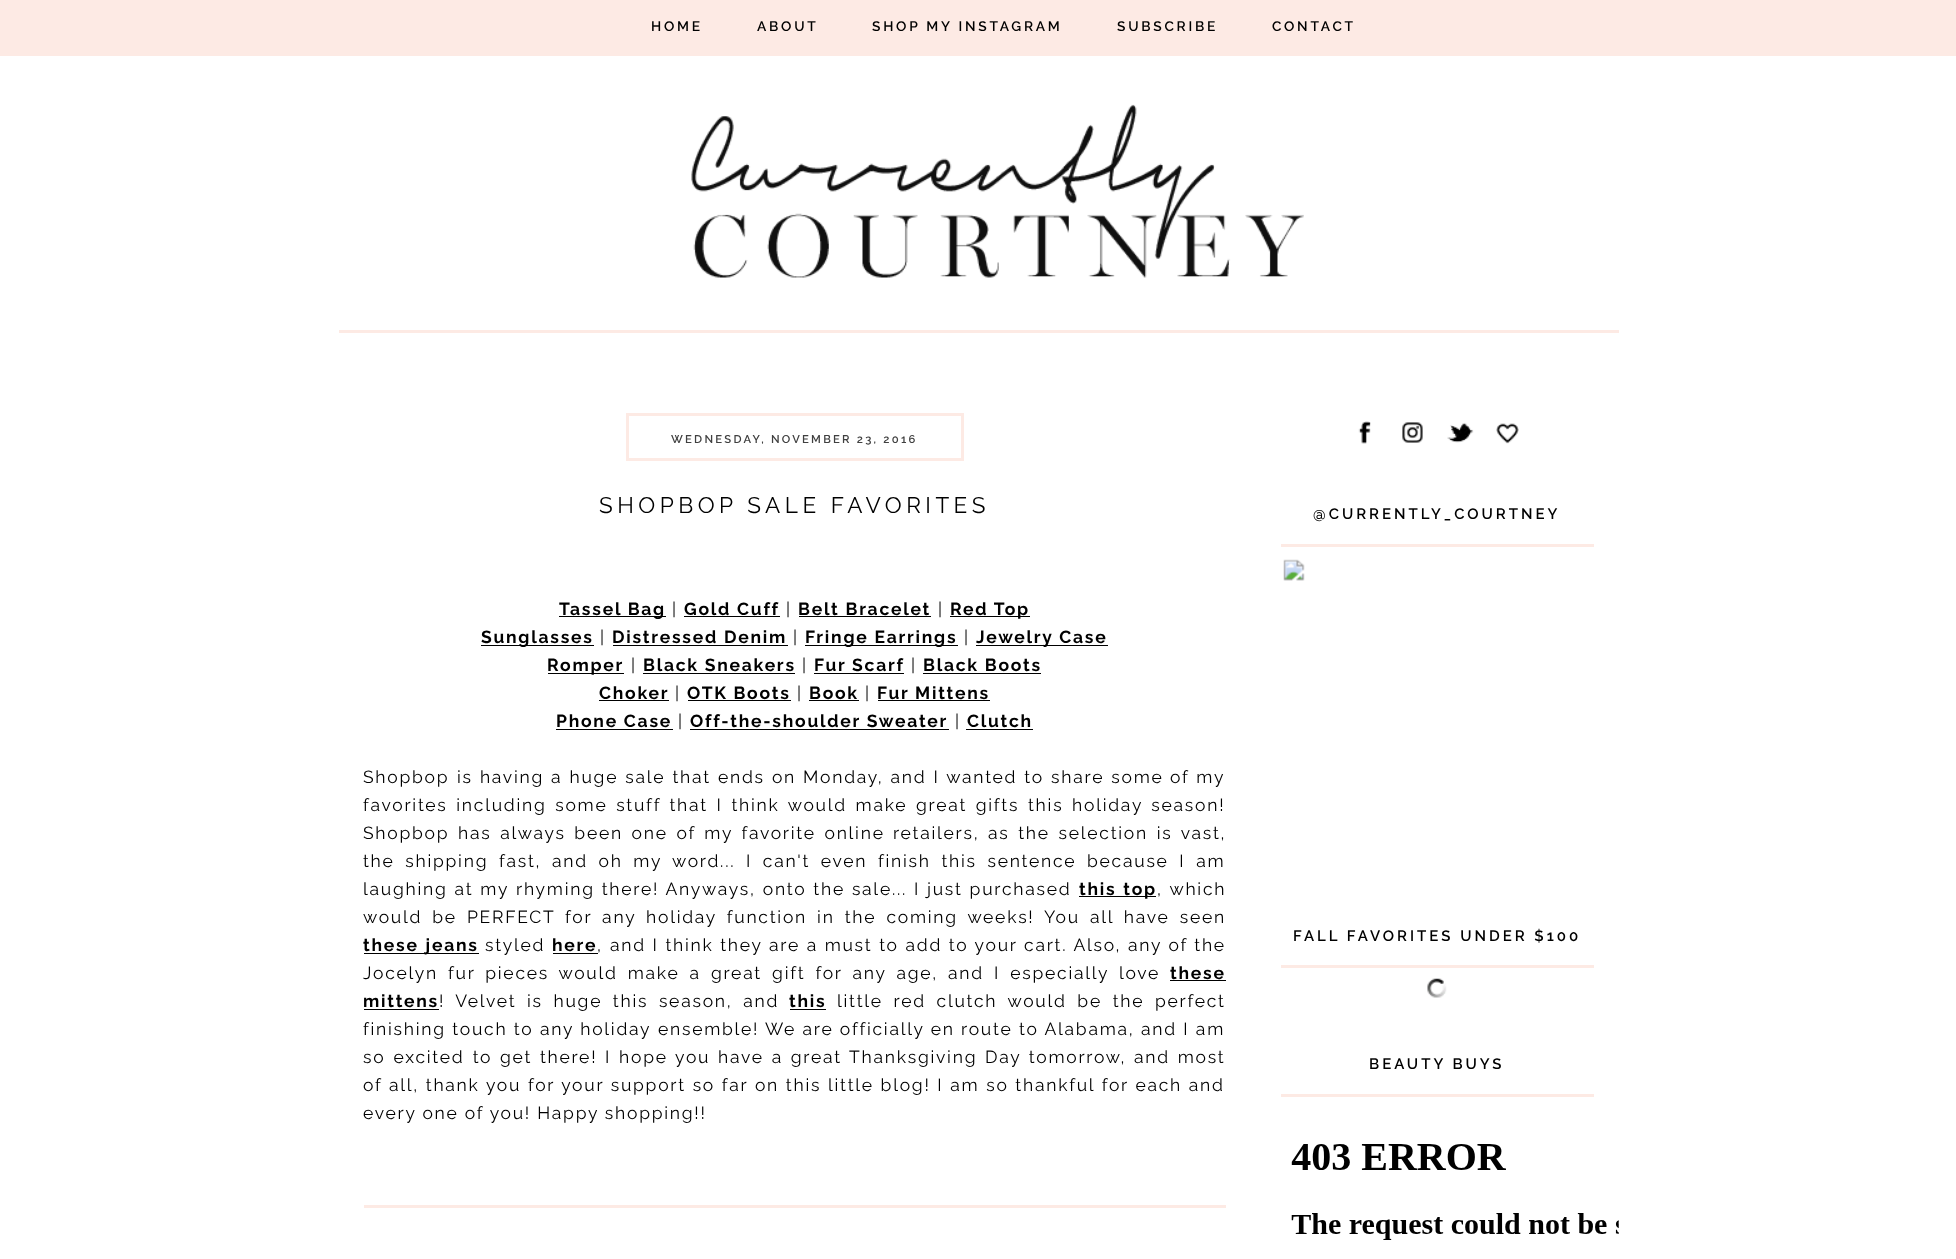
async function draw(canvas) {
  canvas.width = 1956;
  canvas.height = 1259;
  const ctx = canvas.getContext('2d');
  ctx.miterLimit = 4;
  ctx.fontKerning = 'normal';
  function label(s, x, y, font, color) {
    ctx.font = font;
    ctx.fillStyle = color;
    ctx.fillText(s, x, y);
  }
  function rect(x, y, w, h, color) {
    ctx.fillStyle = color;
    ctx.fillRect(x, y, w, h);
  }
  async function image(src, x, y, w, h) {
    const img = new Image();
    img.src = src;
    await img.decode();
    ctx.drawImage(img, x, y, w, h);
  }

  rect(0, 0, 1956, 1259, '#fff');
  rect(0, 0, 1956, 56, '#fdeae4');
  ctx.letterSpacing = '2.75px';
  label('HOME', 651, 31, '600 13.75px Raleway', '#000');
  label('ABOUT', 757, 31, '600 13.75px Raleway', '#000');
  label('SHOP MY INSTAGRAM', 872, 31, '600 13.75px Raleway', '#000');
  label('SUBSCRIBE', 1117, 31, '600 13.75px Raleway', '#000');
  label('CONTACT', 1272, 31, '600 13.75px Raleway', '#000');
  rect(339, 330, 1280, 3, '#fdeae4');
  await image('assets/img1.png', 691, 104, 613, 174);
  ctx.strokeStyle = '#fdeae4';
  ctx.lineWidth = 3;
  ctx.strokeRect(627.5, 414.5, 335, 45);
  ctx.letterSpacing = '2.25px';
  label('WEDNESDAY, NOVEMBER 23, 2016', 671, 443, '600 11.25px Raleway', '#404040');
  rect(364, 1205, 862, 3, '#fdeae4');
  ctx.letterSpacing = '4.5px';
  label('SHOPBOP SALE FAVORITES', 599, 513, '22.5px Raleway', '#000');
  rect(559, 616, 107, 1, '#000');
  ctx.letterSpacing = '1.75px';
  label('Tassel Bag', 559, 615, 'bold 17.5px Raleway', '#000');
  label('|', 672, 615, '17.5px Raleway', '#000');
  label('Gold Cuff', 684, 615, 'bold 17.5px Raleway', '#000');
  rect(684, 616, 96, 1, '#000');
  label('|', 786, 615, '17.5px Raleway', '#000');
  label('Belt Bracelet', 798, 615, 'bold 17.5px Raleway', '#000');
  rect(799, 616, 132, 1, '#000');
  label('|', 938, 615, '17.5px Raleway', '#000');
  rect(950, 616, 80, 1, '#000');
  label('Red Top', 950, 615, 'bold 17.5px Raleway', '#000');
  rect(481, 645, 113, 1, '#000');
  label('Sunglasses', 481, 643, 'bold 17.5px Raleway', '#000');
  label('|', 600, 643, '17.5px Raleway', '#000');
  label('Distressed Denim', 612, 643, 'bold 17.5px Raleway', '#000');
  rect(613, 645, 175, 1, '#000');
  label('|', 793, 643, '17.5px Raleway', '#000');
  rect(805, 645, 153, 1, '#000');
  label('Fringe Earrings', 805, 643, 'bold 17.5px Raleway', '#000');
  label('|', 964, 643, '17.5px Raleway', '#000');
  rect(976, 645, 132, 1, '#000');
  label('Jewelry Case', 976, 643, 'bold 17.5px Raleway', '#000');
  rect(548, 673, 76, 1, '#000');
  label('Romper', 547, 671, 'bold 17.5px Raleway', '#000');
  label('|', 631, 671, '17.5px Raleway', '#000');
  label('Black Sneakers', 643, 671, 'bold 17.5px Raleway', '#000');
  rect(643, 673, 152, 1, '#000');
  label('|', 802, 671, '17.5px Raleway', '#000');
  label('Fur Scarf', 814, 671, 'bold 17.5px Raleway', '#000');
  rect(814, 673, 90, 1, '#000');
  label('|', 911, 671, '17.5px Raleway', '#000');
  label('Black Boots', 923, 671, 'bold 17.5px Raleway', '#000');
  rect(923, 673, 118, 1, '#000');
  label('Choker', 599, 699, 'bold 17.5px Raleway', '#000');
  rect(599, 700, 70, 1, '#000');
  label('|', 675, 699, '17.5px Raleway', '#000');
  label('OTK Boots', 687, 699, 'bold 17.5px Raleway', '#000');
  rect(688, 700, 103, 1, '#000');
  label('|', 797, 699, '17.5px Raleway', '#000');
  label('Book', 809, 699, 'bold 17.5px Raleway', '#000');
  rect(809, 700, 50, 1, '#000');
  label('|', 865, 699, '17.5px Raleway', '#000');
  label('Fur Mittens', 877, 699, 'bold 17.5px Raleway', '#000');
  rect(878, 700, 112, 1, '#000');
  label('Phone Case', 556, 727, 'bold 17.5px Raleway', '#000');
  rect(556, 729, 117, 1, '#000');
  label('|', 678, 727, '17.5px Raleway', '#000');
  label('Off-the-shoulder Sweater', 690, 727, 'bold 17.5px Raleway', '#000');
  rect(690, 729, 259, 1, '#000');
  label('|', 955, 727, '17.5px Raleway', '#000');
  label('Clutch', 967, 727, 'bold 17.5px Raleway', '#000');
  rect(966, 729, 67, 1, '#000');
  label('Shopbop', 363, 783, '17.5px Raleway', '#000');
  ctx.wordSpacing = '0.9px';
  label('is having a huge sale that ends on Monday, and I wanted to share some', 457, 783, '17.5px Raleway', '#000');
  ctx.wordSpacing = '1px';
  label('of my', 1170, 783, '17.5px Raleway', '#000');
  ctx.wordSpacing = '2.5px';
  label('favorites including some stuff that I think would make great gifts', 363, 811, '17.5px Raleway', '#000');
  label('this holiday season!', 1028, 811, '17.5px Raleway', '#000');
  label('Shopbop has always been one of my favorite online', 363, 839, '17.5px Raleway', '#000');
  label('retailers, as the selection is vast,', 893, 839, '17.5px Raleway', '#000');
  ctx.wordSpacing = '4.5px';
  label('the shipping fast, and oh my', 363, 867, '17.5px Raleway', '#000');
  label('word... I can\'t even finish this sentence because I am', 672, 867, '17.5px Raleway', '#000');
  ctx.wordSpacing = '0.75px';
  label('laughing at my', 363, 895, '17.5px Raleway', '#000');
  label('rhyming there! Anyways, onto the sale... I', 516, 895, '17.5px Raleway', '#000');
  label('just purchased', 927, 895, '17.5px Raleway', '#000');
  rect(1079, 896, 77, 1, '#000');
  ctx.wordSpacing = '1px';
  label('this top', 1079, 895, 'bold 17.5px Raleway', '#000');
  label(', which', 1157, 895, '17.5px Raleway', '#000');
  ctx.wordSpacing = '3.9px';
  label('would be PERFECT for any holiday function in the coming weeks! You all have seen', 363, 923, '17.5px Raleway', '#000');
  rect(364, 953, 115, 1, '#000');
  ctx.wordSpacing = '1px';
  label('these jeans', 363, 951, 'bold 17.5px Raleway', '#000');
  ctx.wordSpacing = '0px';
  label('styled', 485, 951, '17.5px Raleway', '#000');
  label('here', 552, 951, 'bold 17.5px Raleway', '#000');
  rect(553, 953, 45, 1, '#000');
  label(',', 597, 951, '17.5px Raleway', '#000');
  ctx.wordSpacing = '0.5px';
  label('and I think they are a must to add to your cart. Also, any of the', 610, 951, '17.5px Raleway', '#000');
  ctx.wordSpacing = '3.9px';
  label('Jocelyn fur pieces would make a great gift for any age, and I especially', 363, 979, '17.5px Raleway', '#000');
  ctx.wordSpacing = '0px';
  label('love', 1119, 979, '17.5px Raleway', '#000');
  label('these', 1170, 979, 'bold 17.5px Raleway', '#000');
  rect(1170, 980, 56, 1, '#000');
  label('mittens', 363, 1007, 'bold 17.5px Raleway', '#000');
  rect(364, 1009, 75, 1, '#000');
  ctx.wordSpacing = '4.5px';
  label('! Velvet is huge this season, and', 439, 1007, '17.5px Raleway', '#000');
  ctx.wordSpacing = '0px';
  label('this', 789, 1007, 'bold 17.5px Raleway', '#000');
  rect(790, 1009, 36, 1, '#000');
  ctx.wordSpacing = '4.5px';
  label('little red clutch would be the perfect', 837, 1007, '17.5px Raleway', '#000');
  ctx.wordSpacing = '0.25px';
  label('finishing touch to any holiday', 363, 1035, '17.5px Raleway', '#000');
  label('ensemble! We are officially en route to Alabama, and I am', 658, 1035, '17.5px Raleway', '#000');
  ctx.wordSpacing = '2px';
  label('so excited to', 363, 1063, '17.5px Raleway', '#000');
  ctx.wordSpacing = '1.6px';
  label('get there! I hope you have a great Thanksgiving Day tomorrow, and most', 500, 1063, '17.5px Raleway', '#000');
  ctx.wordSpacing = '0.6px';
  label('of all, thank you for your support so far on this little blog! I am so thankful for each and', 363, 1091, '17.5px Raleway', '#000');
  ctx.wordSpacing = '0px';
  label('every one of you! Happy shopping!!', 363, 1119, '17.5px Raleway', '#000');
  await image('assets/img2.png', 1358, 421, 13, 23);
  await image('assets/img3.png', 1402, 422, 21, 21);
  await image('assets/img4.png', 1447, 422, 27, 21);
  await image('assets/img5.png', 1496, 423, 23, 21);
  rect(1281, 544, 313, 3, '#fdeae4');
  ctx.letterSpacing = '3px';
  label('@CURRENTLY_COURTNEY', 1313, 519, '600 15px Raleway', '#000');
  await image('assets/img6.png', 1283, 559, 22, 22);
  rect(1281, 965, 313, 3, '#fdeae4');
  label('FALL FAVORITES UNDER $100', 1293, 941, '600 15px Raleway', '#000');
  await image('assets/img7.png', 1427, 978, 20, 20);
  rect(1281, 1094, 313, 3, '#fdeae4');
  label('BEAUTY BUYS', 1369, 1069, '600 15px Raleway', '#000');
  await image('assets/img8.png', 1291, 1144, 328, 96);
}

draw(document.querySelector('canvas'));
